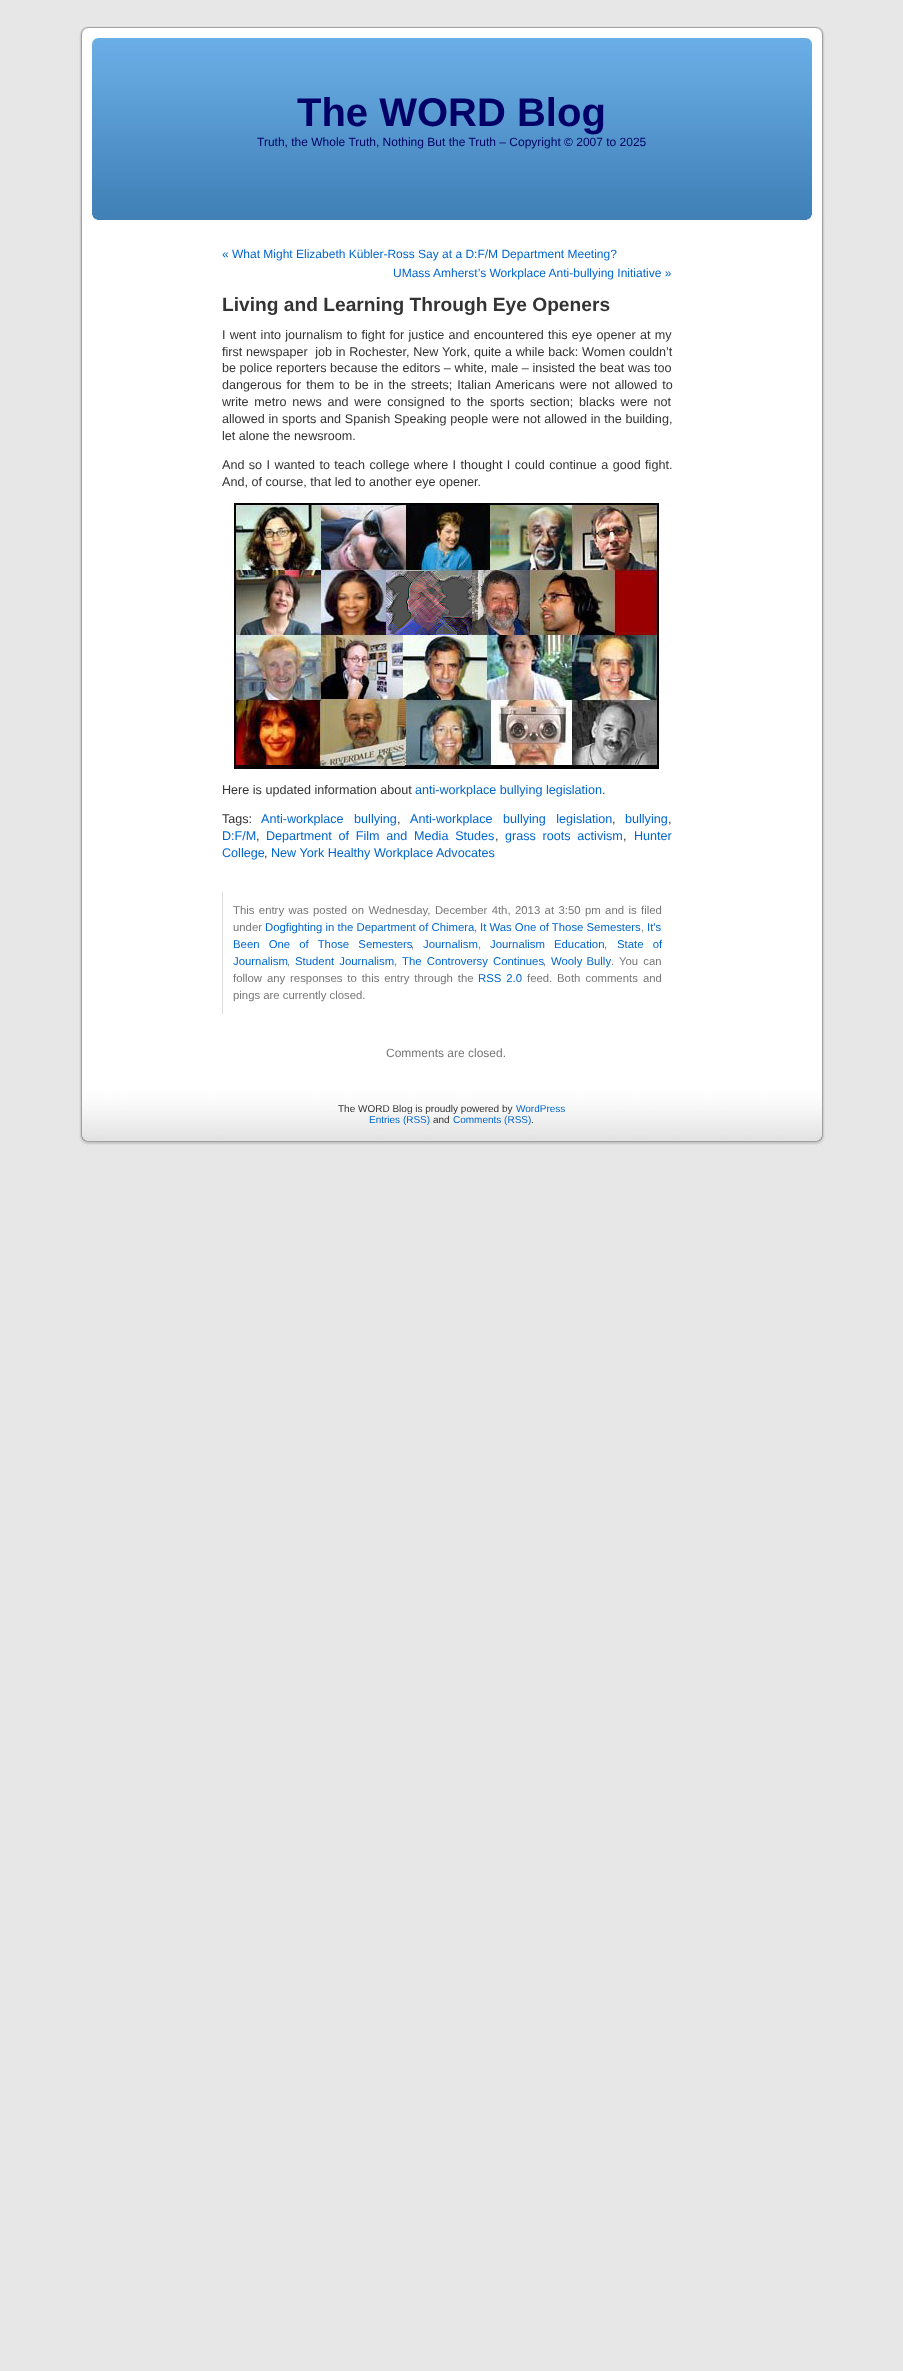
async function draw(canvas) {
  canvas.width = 903;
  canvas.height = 2371;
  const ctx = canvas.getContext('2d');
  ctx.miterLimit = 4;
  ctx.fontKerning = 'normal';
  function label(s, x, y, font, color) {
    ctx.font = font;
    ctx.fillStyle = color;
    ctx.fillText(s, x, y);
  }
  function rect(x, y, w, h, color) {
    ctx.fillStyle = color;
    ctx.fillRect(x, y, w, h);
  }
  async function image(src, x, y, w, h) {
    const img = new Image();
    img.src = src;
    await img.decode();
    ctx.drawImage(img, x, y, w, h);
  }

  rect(0, 0, 903, 2371, '#e7e7e7');
  await image('assets/img1.png', 79, 220, 746, 863);
  await image('assets/img2.png', 73, 20, 758, 200);
  label('The WORD Blog', 297, 126, 'bold 40px Liberation Sans', '#006');
  label('Truth, the Whole Truth, Nothing But the Truth – Copyright © 2007 to 2025', 257, 146, '12px Liberation Sans', '#006');
  label('« What Might Elizabeth Kübler-Ross Say at a D:F/M Department Meeting?', 222, 258, '12px Liberation Sans', '#06c');
  label('UMass Amherst’s Workplace Anti-bullying Initiative »', 393, 277, '12px Liberation Sans', '#06c');
  label('Living and Learning Through Eye Openers', 222, 311, 'bold 19.2px Liberation Sans', '#333');
  ctx.wordSpacing = '0.75px';
  label('I went into journalism to fight for justice and encountered this eye opener at my', 222, 339, '12.6px Liberation Sans', '#333');
  ctx.wordSpacing = '0.25px';
  label('first newspaper  job in Rochester, New York, quite a while back: Women couldn’t', 222, 356, '12.6px Liberation Sans', '#333');
  ctx.wordSpacing = '0.1px';
  label('be police reporters because the editors – white, male – insisted the beat was too', 222, 372, '12.6px Liberation Sans', '#333');
  ctx.wordSpacing = '1.5px';
  label('dangerous for them to be in the streets; Italian Americans were not allowed to', 222, 389, '12.6px Liberation Sans', '#333');
  ctx.wordSpacing = '2.25px';
  label('write metro news and were consigned to the sports section; blacks were not', 222, 406, '12.6px Liberation Sans', '#333');
  ctx.wordSpacing = '0.25px';
  label('allowed in sports and Spanish Speaking people were not allowed in the building,', 222, 423, '12.6px Liberation Sans', '#333');
  ctx.wordSpacing = '0px';
  label('let alone the newsroom.', 222, 440, '12.6px Liberation Sans', '#333');
  ctx.wordSpacing = '0.9px';
  label('And so I wanted to teach college where I thought I could continue a good fight.', 222, 469, '12.6px Liberation Sans', '#333');
  ctx.wordSpacing = '0px';
  label('And, of course, that led to another eye opener.', 222, 486, '12.6px Liberation Sans', '#333');
  await image('assets/img3.png', 234, 503, 425, 266);
  label('Here is updated information about', 222, 794, '12.6px Liberation Sans', '#333');
  label('anti-workplace bullying legislation', 415, 794, '12.6px Liberation Sans', '#06c');
  label('.', 602, 794, '12.6px Liberation Sans', '#333');
  label('Tags:', 222, 823, '12.6px Liberation Sans', '#333');
  ctx.wordSpacing = '7px';
  label('Anti-workplace bullying', 261, 823, '12.6px Liberation Sans', '#06c');
  ctx.wordSpacing = '0px';
  label(',', 397, 823, '12.6px Liberation Sans', '#333');
  ctx.wordSpacing = '7px';
  label('Anti-workplace bullying legislation', 410, 823, '12.6px Liberation Sans', '#06c');
  ctx.wordSpacing = '0px';
  label(',', 612, 823, '12.6px Liberation Sans', '#333');
  label('bullying', 625, 823, '12.6px Liberation Sans', '#06c');
  label(',', 668, 823, '12.6px Liberation Sans', '#333');
  label('D:F/M', 222, 840, '12.6px Liberation Sans', '#06c');
  label(',', 256, 840, '12.6px Liberation Sans', '#333');
  ctx.wordSpacing = '3.25px';
  label('Department of Film and Media Studes', 266, 840, '12.6px Liberation Sans', '#06c');
  ctx.wordSpacing = '0px';
  label(',', 495, 840, '12.6px Liberation Sans', '#333');
  ctx.wordSpacing = '3.25px';
  label('grass roots activism', 505, 840, '12.6px Liberation Sans', '#06c');
  ctx.wordSpacing = '0px';
  label(',', 623, 840, '12.6px Liberation Sans', '#333');
  label('Hunter', 634, 840, '12.6px Liberation Sans', '#06c');
  label('College', 222, 857, '12.6px Liberation Sans', '#06c');
  label(',', 264, 857, '12.6px Liberation Sans', '#333');
  label('New York Healthy Workplace Advocates', 271, 857, '12.6px Liberation Sans', '#06c');
  rect(222, 892, 1, 122, '#ddd');
  ctx.wordSpacing = '1.25px';
  label('This entry was posted on Wednesday, December 4th, 2013 at 3:50 pm and is filed', 233, 914, '11.35px Liberation Sans', '#777');
  ctx.wordSpacing = '0px';
  label('under', 233, 931, '11.35px Liberation Sans', '#777');
  label('Dogfighting in the Department of Chimera', 265, 931, '11.35px Liberation Sans', '#06c');
  label(',', 474, 931, '11.35px Liberation Sans', '#777');
  label('It Was One of Those Semesters', 480, 931, '11.35px Liberation Sans', '#06c');
  label(',', 641, 931, '11.35px Liberation Sans', '#777');
  label('It\'s', 647, 931, '11.35px Liberation Sans', '#06c');
  ctx.wordSpacing = '6px';
  label('Been One of Those Semesters', 233, 948, '11.35px Liberation Sans', '#06c');
  ctx.wordSpacing = '0px';
  label(',', 411, 948, '11.35px Liberation Sans', '#777');
  label('Journalism', 423, 948, '11.35px Liberation Sans', '#06c');
  label(',', 478, 948, '11.35px Liberation Sans', '#777');
  ctx.wordSpacing = '6px';
  label('Journalism Education', 490, 948, '11.35px Liberation Sans', '#06c');
  ctx.wordSpacing = '0px';
  label(',', 604, 948, '11.35px Liberation Sans', '#777');
  ctx.wordSpacing = '6px';
  label('State of', 617, 948, '11.35px Liberation Sans', '#06c');
  ctx.wordSpacing = '0px';
  label('Journalism', 233, 965, '11.35px Liberation Sans', '#06c');
  label(',', 287, 965, '11.35px Liberation Sans', '#777');
  ctx.wordSpacing = '2px';
  label('Student Journalism', 295, 965, '11.35px Liberation Sans', '#06c');
  ctx.wordSpacing = '0px';
  label(',', 394, 965, '11.35px Liberation Sans', '#777');
  ctx.wordSpacing = '2px';
  label('The Controversy Continues', 402, 965, '11.35px Liberation Sans', '#06c');
  ctx.wordSpacing = '0px';
  label(',', 543, 965, '11.35px Liberation Sans', '#777');
  ctx.wordSpacing = '1px';
  label('Wooly Bully', 551, 965, '11.35px Liberation Sans', '#06c');
  ctx.wordSpacing = '0px';
  label('.', 611, 965, '11.35px Liberation Sans', '#777');
  ctx.wordSpacing = '2px';
  label('You can', 619, 965, '11.35px Liberation Sans', '#777');
  ctx.wordSpacing = '1.75px';
  label('follow any responses to this entry through the', 233, 982, '11.35px Liberation Sans', '#777');
  label('RSS 2.0', 478, 982, '11.35px Liberation Sans', '#06c');
  ctx.wordSpacing = '0px';
  label('feed.', 527, 982, '11.35px Liberation Sans', '#777');
  ctx.wordSpacing = '2px';
  label('Both comments and', 557, 982, '11.35px Liberation Sans', '#777');
  ctx.wordSpacing = '0px';
  label('pings are currently closed.', 233, 999, '11.35px Liberation Sans', '#777');
  label('Comments are closed.', 386, 1057, '12px Liberation Sans', '#777');
  await image('assets/img4.png', 79, 1083, 746, 62);
  label('The WORD Blog is proudly powered by', 338, 1112, '10px Liberation Sans', '#333');
  label('WordPress', 516, 1112, '10px Liberation Sans', '#06c');
  label('Entries (RSS)', 369, 1123, '10px Liberation Sans', '#06c');
  label('and', 433, 1123, '10px Liberation Sans', '#333');
  label('Comments (RSS)', 453, 1123, '10px Liberation Sans', '#06c');
  label('.', 531, 1123, '10px Liberation Sans', '#333');
}

draw(document.querySelector('canvas'));
